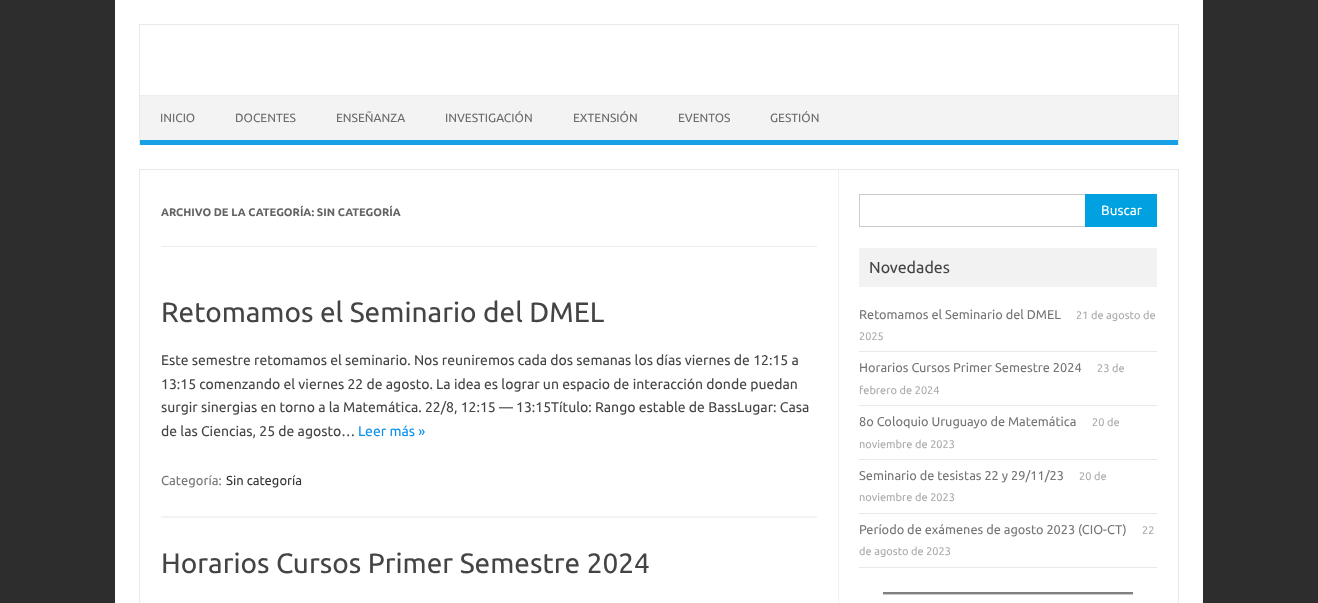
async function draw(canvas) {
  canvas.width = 1318;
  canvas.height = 603;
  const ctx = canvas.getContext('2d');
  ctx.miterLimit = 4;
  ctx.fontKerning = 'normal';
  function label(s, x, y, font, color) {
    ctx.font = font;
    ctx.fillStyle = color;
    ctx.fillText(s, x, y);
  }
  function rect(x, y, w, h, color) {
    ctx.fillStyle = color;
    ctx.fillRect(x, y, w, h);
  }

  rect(0, 0, 1318, 603, '#2d2d2d');
  rect(115, 0, 1088, 603, '#fff');
  rect(139, 24, 1040, 1, '#e9e9e9');
  rect(1178, 24, 1, 121, '#e9e9e9');
  rect(139, 24, 1, 121, '#e9e9e9');
  rect(140, 96, 1038, 44, '#f3f3f3');
  rect(140, 95, 1038, 1, '#ededed');
  rect(140, 140, 1038, 5, '#16a1e7');
  label('INICIO', 160, 122, '12px Ubuntu', '#6a6a6a');
  label('DOCENTES', 235, 122, '12px Ubuntu', '#6a6a6a');
  label('ENSEÑANZA', 336, 122, '12px Ubuntu', '#6a6a6a');
  label('INVESTIGACIÓN', 445, 122, '12px Ubuntu', '#6a6a6a');
  label('EXTENSIÓN', 573, 122, '12px Ubuntu', '#6a6a6a');
  label('EVENTOS', 678, 122, '12px Ubuntu', '#6a6a6a');
  label('GESTIÓN', 770, 122, '12px Ubuntu', '#6a6a6a');
  ctx.strokeStyle = '#e9e9e9';
  ctx.strokeRect(139.5, 169.5, 1039, 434);
  rect(838, 170, 1, 433, '#f1f1f1');
  rect(161, 246, 656, 1, '#ededed');
  label('ARCHIVO DE LA CATEGORÍA: SIN CATEGORÍA', 161, 216, 'bold 11px Ubuntu', '#636363');
  rect(161, 516, 656, 2, '#f3f3f3');
  label('Retomamos el Seminario del DMEL', 161, 322, '28px Ubuntu', '#444');
  label('Este semestre retomamos el seminario. Nos reuniremos cada dos semanas los días viernes de 12:15 a', 161, 365, '14px Ubuntu', '#444');
  label('13:15 comenzando el viernes 22 de agosto. La idea es lograr un espacio de interacción donde puedan', 161, 389, '14px Ubuntu', '#444');
  label('surgir sinergias en torno a la Matemática. 22/8, 12:15 — 13:15Título: Rango estable de BassLugar: Casa', 161, 412, '14px Ubuntu', '#444');
  label('de las Ciencias, 25 de agosto…', 161, 436, '14px Ubuntu', '#444');
  label('Leer más »', 358, 436, '14px Ubuntu', '#0b91ea');
  label('Categoría:', 161, 485, '13px Ubuntu', '#757575');
  label('Sin categoría', 226, 485, '13px Ubuntu', '#333');
  label('Horarios Cursos Primer Semestre 2024', 161, 573, '28px Ubuntu', '#444');
  ctx.strokeStyle = '#ccc';
  ctx.strokeRect(859.5, 194.5, 227, 32);
  rect(1085, 194, 72, 33, '#00a1e0');
  label('Buscar', 1101, 215, '13.5px Ubuntu', '#fff');
  rect(859, 248, 298, 39, '#f2f2f2');
  label('Novedades', 869, 273, '16px Ubuntu', '#444');
  rect(859, 351, 298, 1, '#e9e9e9');
  label('Retomamos el Seminario del DMEL', 859, 319, '12.75px Ubuntu', '#757575');
  label('21 de agosto de', 1076, 319, '11px Ubuntu', '#aaa');
  label('2025', 859, 340, '11px Ubuntu', '#aaa');
  rect(859, 405, 298, 1, '#e9e9e9');
  label('Horarios Cursos Primer Semestre 2024', 859, 372, '12.75px Ubuntu', '#757575');
  label('23 de', 1097, 372, '11px Ubuntu', '#aaa');
  label('febrero de 2024', 859, 394, '11px Ubuntu', '#aaa');
  rect(859, 459, 298, 1, '#e9e9e9');
  label('8o Coloquio Uruguayo de Matemática', 859, 426, '12.75px Ubuntu', '#757575');
  label('20 de', 1092, 426, '11px Ubuntu', '#aaa');
  label('noviembre de 2023', 859, 448, '11px Ubuntu', '#aaa');
  rect(859, 513, 298, 1, '#e9e9e9');
  label('Seminario de tesistas 22 y 29/11/23', 859, 480, '12.75px Ubuntu', '#757575');
  label('20 de', 1079, 480, '11px Ubuntu', '#aaa');
  label('noviembre de 2023', 859, 501, '11px Ubuntu', '#aaa');
  rect(859, 567, 298, 1, '#e9e9e9');
  label('Período de exámenes de agosto 2023 (CIO-CT)', 859, 534, '12.75px Ubuntu', '#757575');
  label('22', 1142, 534, '11px Ubuntu', '#aaa');
  label('de agosto de 2023', 859, 555, '11px Ubuntu', '#aaa');
  rect(883, 594, 250, 1, '#ccc');
  rect(883, 592, 250, 2, '#808080');
}

draw(document.querySelector('canvas'));
